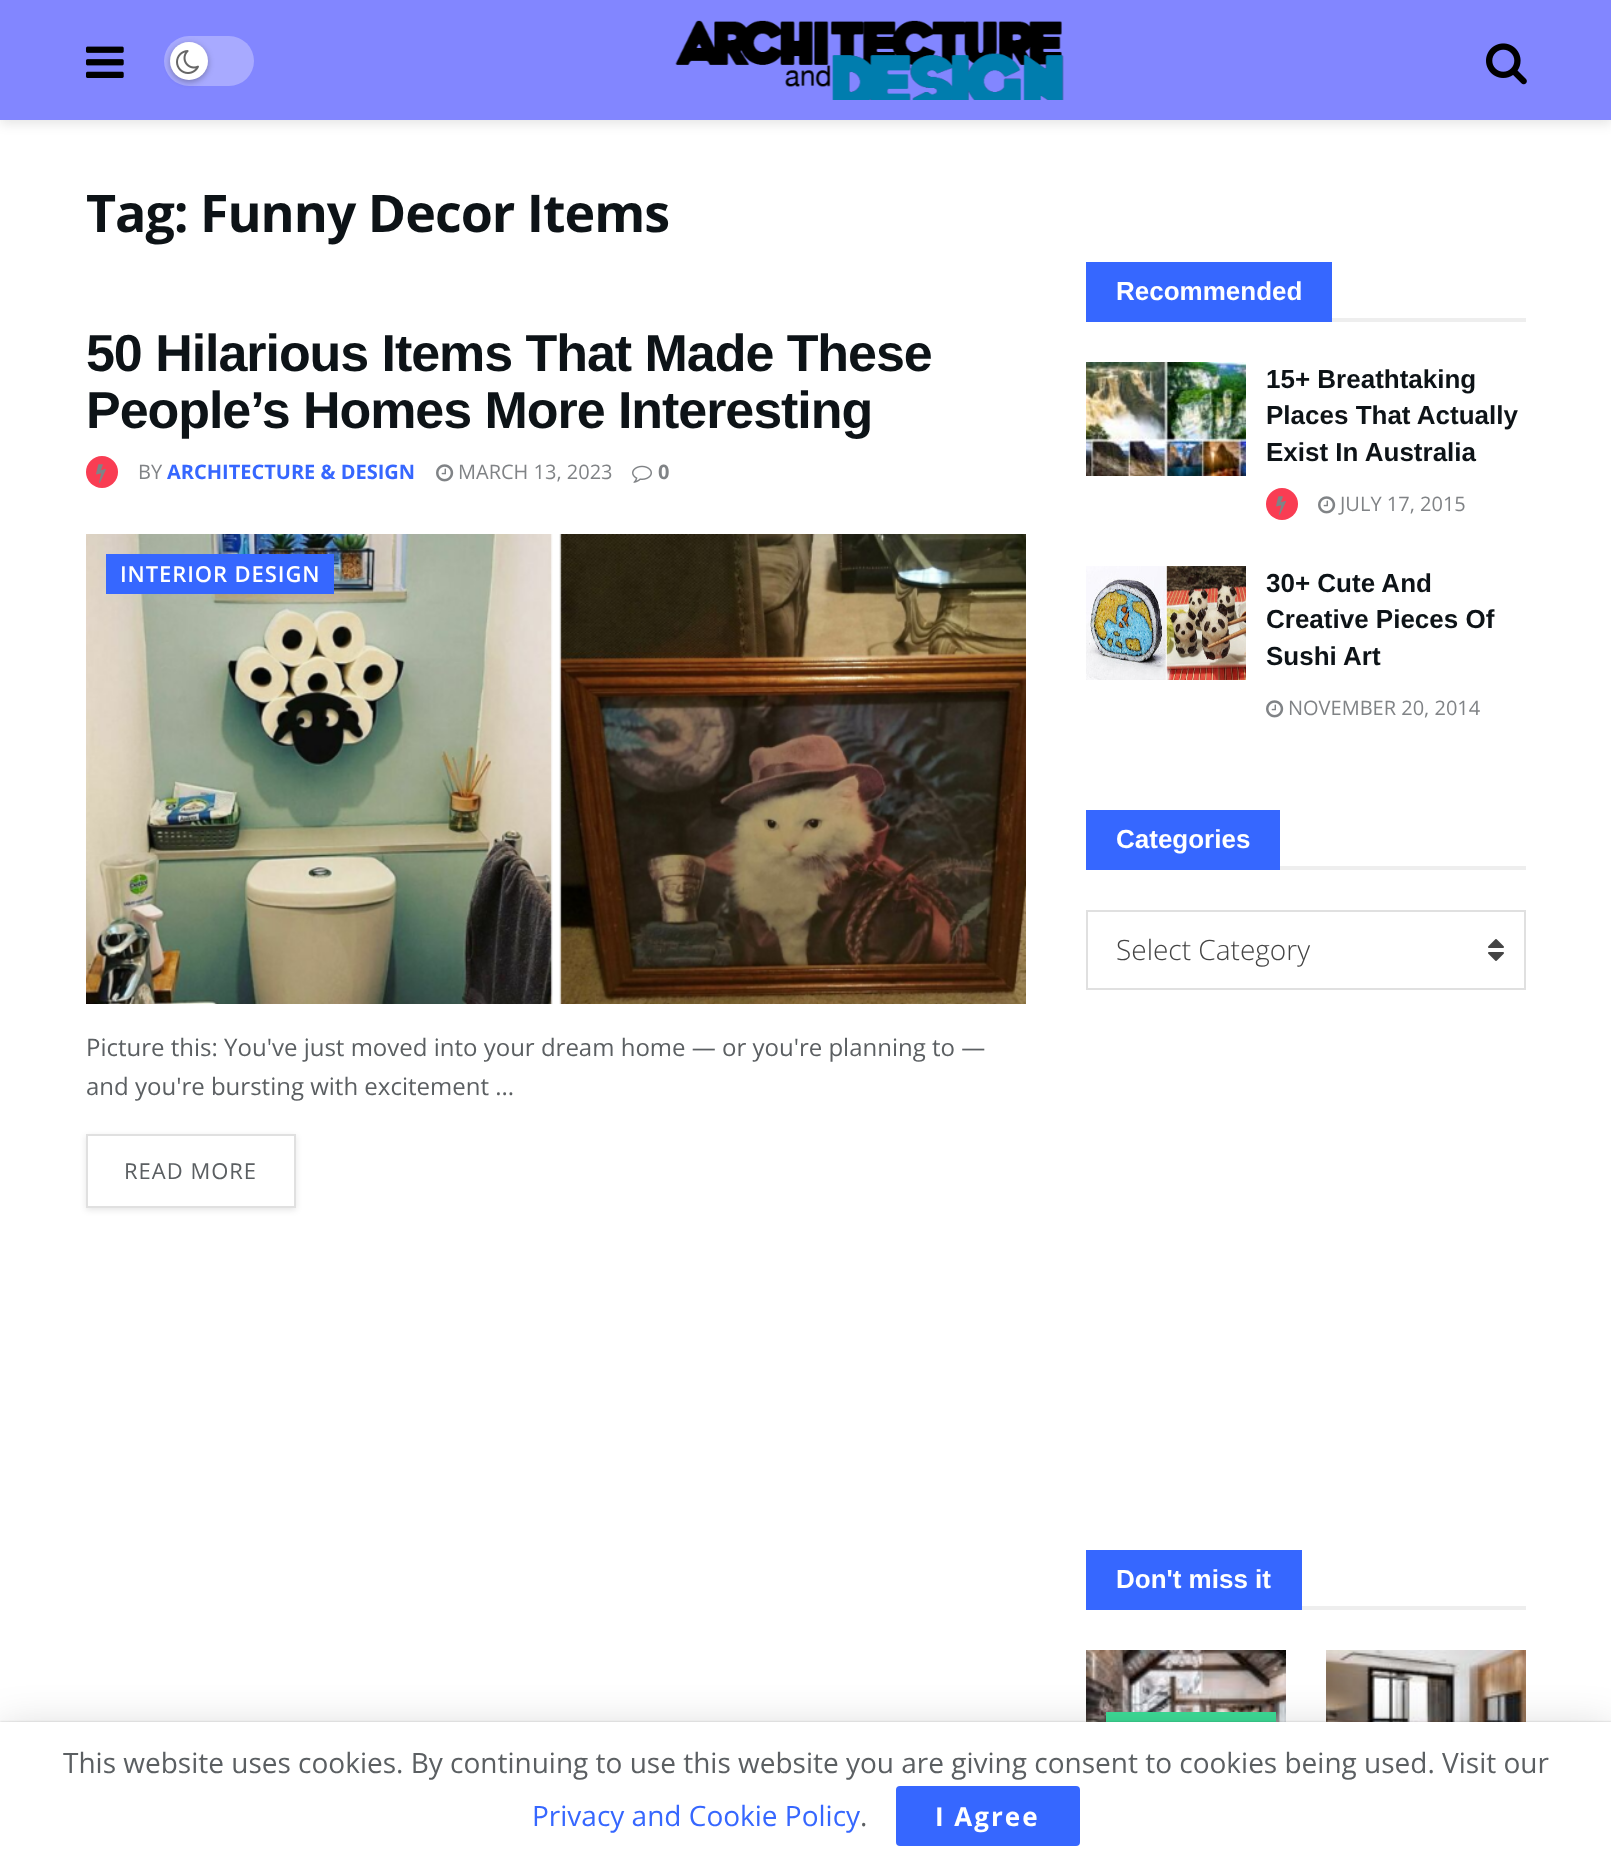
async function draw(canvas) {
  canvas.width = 1611;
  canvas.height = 1865;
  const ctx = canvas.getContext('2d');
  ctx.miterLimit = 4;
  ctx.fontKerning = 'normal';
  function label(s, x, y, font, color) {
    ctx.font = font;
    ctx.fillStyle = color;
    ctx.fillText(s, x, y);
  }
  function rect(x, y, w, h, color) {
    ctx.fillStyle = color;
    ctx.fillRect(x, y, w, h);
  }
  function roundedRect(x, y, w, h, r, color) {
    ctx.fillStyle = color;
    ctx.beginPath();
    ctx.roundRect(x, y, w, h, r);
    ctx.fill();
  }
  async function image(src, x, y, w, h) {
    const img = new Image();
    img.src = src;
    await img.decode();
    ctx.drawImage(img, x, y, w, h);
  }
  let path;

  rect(0, 0, 1611, 1865, '#fff');
  ctx.fillStyle = '#0000001a';
  ctx.filter = 'blur(6px)';
  ctx.beginPath();
  ctx.rect(0, 4, 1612, 120);
  ctx.fill();
  ctx.filter = 'none';
  rect(0, 0, 1611, 120, '#8286ff');
  await image('assets/img1.png', 86, 46, 38, 32);
  roundedRect(164, 36, 90, 50, 25, '#a8aaff');
  ctx.fillStyle = '#0000004d';
  ctx.filter = 'blur(3px)';
  ctx.beginPath();
  ctx.roundRect(170, 44, 38, 38, 19);
  ctx.fill();
  ctx.filter = 'none';
  ctx.fillStyle = '#fff';
  ctx.beginPath();
  ctx.arc(189, 61, 19, 0, 2 * Math.PI);
  ctx.fill();
  await image('assets/img2.png', 176, 50, 23, 24);
  await image('assets/img3.png', 675, 20, 389, 80);
  await image('assets/img4.png', 1486, 43, 41, 42);
  ctx.letterSpacing = '-1.05px';
  label('Tag: Funny Decor Items', 86, 232, 'bold 52px Open Sans', '#0d1317');
  label('50 Hilarious Items That Made These', 86, 371, 'bold 52px Liberation Sans', '#0d1317');
  label('People’s Homes More Interesting', 86, 428, 'bold 52px Liberation Sans', '#0d1317');
  ctx.fillStyle = '#f93d53';
  ctx.beginPath();
  ctx.arc(102, 472, 16, 0, 2 * Math.PI);
  ctx.fill();
  await image('assets/img5.png', 96, 464, 10, 19);
  ctx.letterSpacing = '0px';
  label('BY', 138, 479, '20px Open Sans', '#808386');
  label('ARCHITECTURE & DESIGN', 167, 479, 'bold 20px Open Sans', '#3667ff');
  await image('assets/img6.png', 436, 464, 18, 18);
  label('MARCH 13, 2023', 458, 479, '20px Open Sans', '#808386');
  await image('assets/img7.png', 632, 465, 20, 18);
  label('0', 658, 479, 'bold 20px Open Sans', '#808386');
  await image('assets/img8.png', 86, 534, 940, 470);
  rect(106, 554, 228, 40, '#3667ff');
  ctx.letterSpacing = '0.9px';
  label('INTERIOR DESIGN', 120, 582, '600 22px Open Sans', '#fff');
  ctx.letterSpacing = '0px';
  label('Picture this: You\'ve just moved into your dream home — or you\'re planning to —', 86, 1056, '24px Open Sans', '#5b5f62');
  label('and you\'re bursting with excitement ...', 86, 1095, '24px Open Sans', '#5b5f62');
  ctx.save();
  path = new Path2D('M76 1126H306V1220H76ZM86 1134H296V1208H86Z');
  ctx.clip(path, 'evenodd');
  ctx.fillStyle = '#0000001a';
  ctx.filter = 'blur(3px)';
  ctx.beginPath();
  ctx.rect(86, 1136, 210, 74);
  ctx.fill();
  ctx.filter = 'none';
  ctx.restore();
  ctx.strokeStyle = '#e0e0e0';
  ctx.lineWidth = 2;
  ctx.strokeRect(87, 1135, 208, 72);
  ctx.letterSpacing = '1px';
  label('READ MORE', 124, 1179, '22px Open Sans', '#5b5f62');
  rect(1332, 318, 194, 4, '#eee');
  rect(1086, 262, 246, 60, '#3667ff');
  ctx.letterSpacing = '0px';
  label('Recommended', 1116, 300, 'bold 26px Liberation Sans', '#fff');
  await image('assets/img9.png', 1086, 362, 160, 114);
  label('15+ Breathtaking', 1266, 388, 'bold 26px Liberation Sans', '#0d1317');
  label('Places That Actually', 1266, 424, 'bold 26px Liberation Sans', '#0d1317');
  label('Exist In Australia', 1266, 461, 'bold 26px Liberation Sans', '#0d1317');
  ctx.fillStyle = '#f93d53';
  ctx.beginPath();
  ctx.arc(1282, 504, 16, 0, 2 * Math.PI);
  ctx.fill();
  await image('assets/img5.png', 1276, 496, 10, 19);
  await image('assets/img6.png', 1318, 496, 18, 18);
  label('JULY 17, 2015', 1340, 511, '20px Open Sans', '#808386');
  await image('assets/img10.png', 1086, 566, 160, 114);
  label('30+ Cute And', 1266, 592, 'bold 26px Liberation Sans', '#0d1317');
  label('Creative Pieces Of', 1266, 628, 'bold 26px Liberation Sans', '#0d1317');
  label('Sushi Art', 1266, 665, 'bold 26px Liberation Sans', '#0d1317');
  await image('assets/img6.png', 1266, 700, 18, 18);
  label('NOVEMBER 20, 2014', 1288, 715, '20px Open Sans', '#808386');
  rect(1280, 866, 246, 4, '#eee');
  rect(1086, 810, 194, 60, '#3667ff');
  label('Categories', 1116, 848, 'bold 26px Liberation Sans', '#fff');
  ctx.strokeRect(1087, 911, 438, 78);
  label('Select Category', 1116, 960, '300 28px Open Sans', '#444');
  await image('assets/img11.png', 1488, 939, 16, 22);
  rect(1302, 1606, 224, 4, '#eee');
  rect(1086, 1550, 216, 60, '#3667ff');
  label('Don\'t miss it', 1116, 1588, 'bold 26px Liberation Sans', '#fff');
  await image('assets/img12.png', 1086, 1650, 200, 72);
  rect(1106, 1712, 170, 10, '#3ddc97');
  await image('assets/img13.png', 1326, 1650, 200, 72);
  ctx.fillStyle = '#00000026';
  ctx.filter = 'blur(20px)';
  ctx.beginPath();
  ctx.rect(0, 1726, 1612, 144);
  ctx.fill();
  ctx.filter = 'none';
  ctx.fillStyle = '#00000033';
  ctx.filter = 'blur(1px)';
  ctx.beginPath();
  ctx.rect(0, 1722, 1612, 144);
  ctx.fill();
  ctx.filter = 'none';
  rect(0, 1722, 1611, 143, '#fff');
  label('This website uses cookies. By continuing to use this website you are giving consent to cookies being used. Visit our', 63, 1773, '28px Open Sans', '#5b5f62');
  label('Privacy and Cookie Policy', 532, 1826, '28px Open Sans', '#3667ff');
  label('.', 860, 1826, '28px Open Sans', '#5b5f62');
  roundedRect(896, 1786, 184, 60, 4, '#3667ff');
  ctx.letterSpacing = '2px';
  label('I Agree', 935, 1826, 'bold 26px Open Sans', '#fff');
}

draw(document.querySelector('canvas'));
